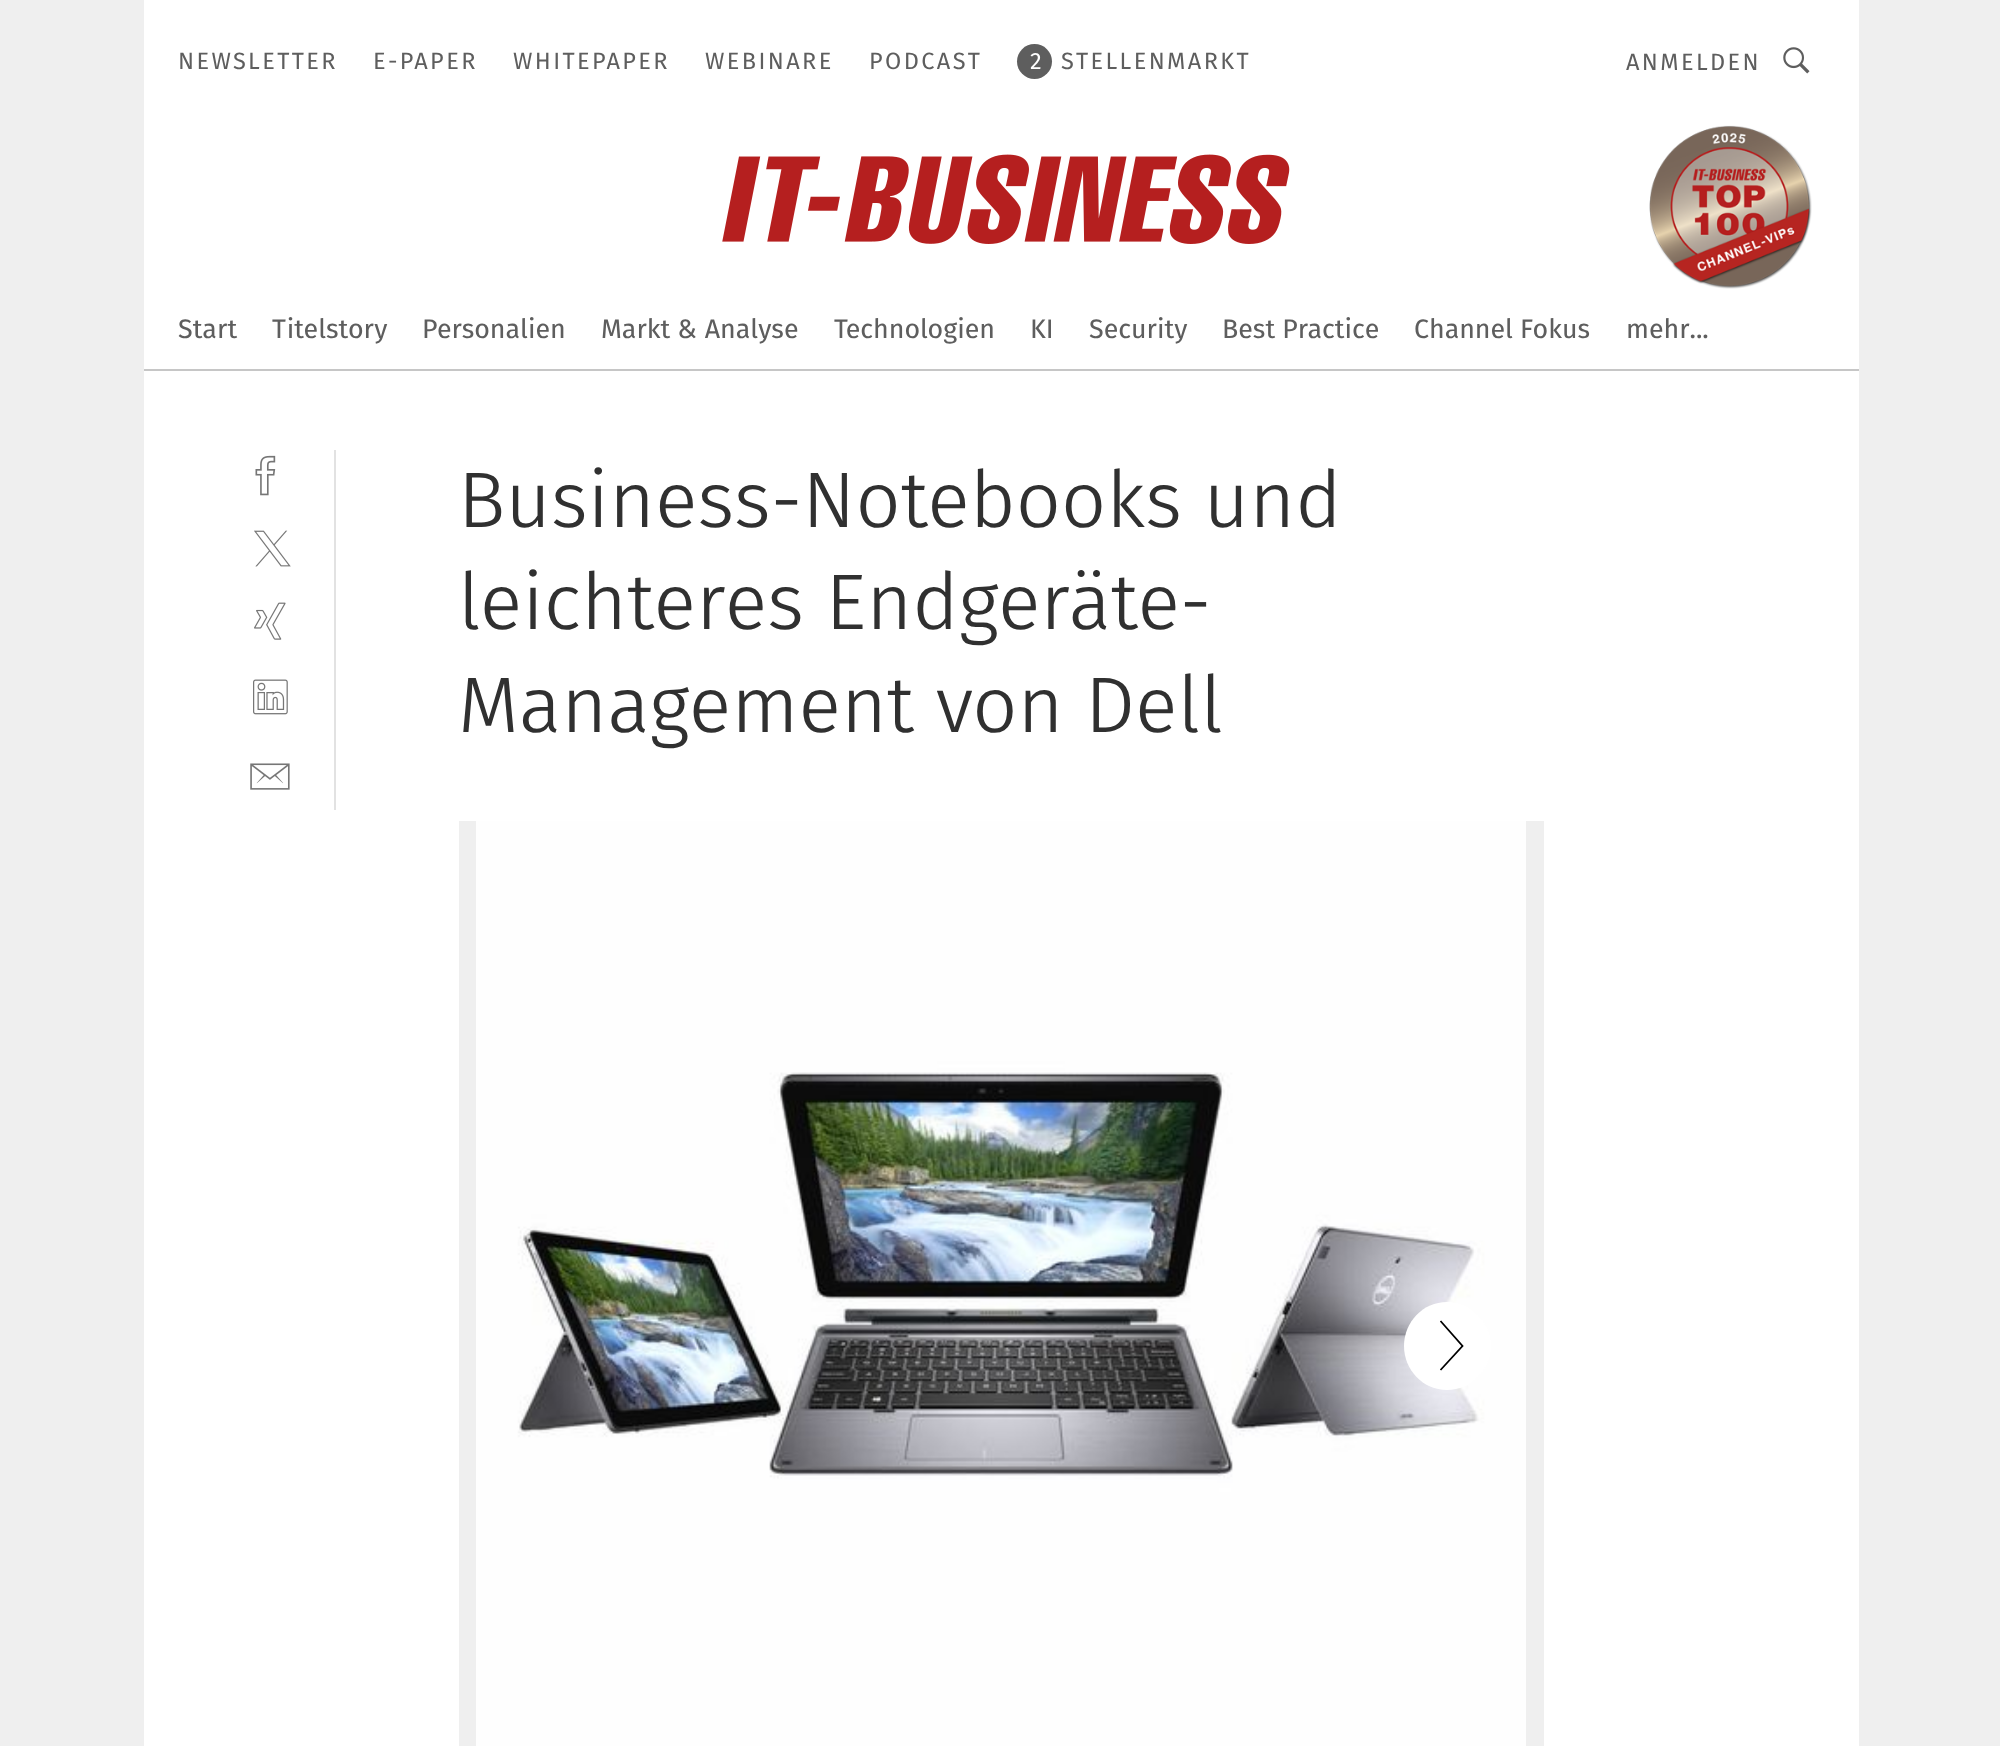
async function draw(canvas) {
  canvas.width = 2000;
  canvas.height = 1746;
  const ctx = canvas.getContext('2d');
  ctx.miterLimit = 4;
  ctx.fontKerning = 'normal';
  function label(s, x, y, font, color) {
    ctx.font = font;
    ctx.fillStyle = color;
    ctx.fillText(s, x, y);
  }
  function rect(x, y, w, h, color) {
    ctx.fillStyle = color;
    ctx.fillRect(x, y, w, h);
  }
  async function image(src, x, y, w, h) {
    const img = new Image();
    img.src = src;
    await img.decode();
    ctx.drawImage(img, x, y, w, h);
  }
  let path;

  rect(0, 0, 2000, 1746, '#efefef');
  rect(144, 0, 1715, 1746, '#fff');
  rect(144, 369, 1715, 2, '#c6c6c6');
  ctx.letterSpacing = '2.4px';
  label('NEWSLETTER', 178, 69, '23.5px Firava', '#5e5e5e');
  label('E-PAPER', 373, 69, '23.5px Firava', '#5e5e5e');
  label('WHITEPAPER', 513, 69, '23.5px Firava', '#5e5e5e');
  label('WEBINARE', 705, 69, '23.5px Firava', '#5e5e5e');
  label('PODCAST', 869, 69, '23.5px Firava', '#5e5e5e');
  ctx.beginPath();
  ctx.arc(1034.5, 61.5, 17.5, 0, 2 * Math.PI);
  ctx.fill();
  label('2', 1030, 69, '23.5px Firava', '#fff');
  label('STELLENMARKT', 1061, 69, '23.5px Firava', '#5e5e5e');
  label('ANMELDEN', 1626, 70, '23.5px Firava', '#5e5e5e');
  await image('assets/img1.png', 1783, 47, 27, 27);
  await image('assets/img2.png', 722, 154, 568, 90);
  await image('assets/img3.png', 1649, 125, 163, 164);
  ctx.letterSpacing = '0px';
  label('Start', 178, 338, '26.75px "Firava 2"', '#5e5e5e');
  label('Titelstory', 272, 338, '26.75px "Firava 2"', '#5e5e5e');
  label('Personalien', 422, 338, '26.75px "Firava 2"', '#5e5e5e');
  label('Markt & Analyse', 601, 338, '26.75px "Firava 2"', '#5e5e5e');
  label('Technologien', 834, 338, '26.75px "Firava 2"', '#5e5e5e');
  label('KI', 1030, 338, '26.75px "Firava 2"', '#5e5e5e');
  label('Security', 1089, 338, '26.75px "Firava 2"', '#5e5e5e');
  label('Best Practice', 1222, 338, '26.75px "Firava 2"', '#5e5e5e');
  label('Channel Fokus', 1414, 338, '26.75px "Firava 2"', '#5e5e5e');
  label('mehr...', 1626, 338, '26.75px "Firava 2"', '#5e5e5e');
  rect(334, 450, 2, 360, '#e2e2e2');
  await image('assets/img4.png', 255, 455, 21, 41);
  await image('assets/img5.png', 254, 530, 37, 37);
  await image('assets/img6.png', 254, 602, 32, 38);
  await image('assets/img7.png', 253, 679, 35, 36);
  await image('assets/img8.png', 250, 763, 40, 27);
  label('Business-Notebooks und', 458, 527, '300 78.75px Firava', '#303030');
  label('leichteres Endgeräte-', 458, 629, '300 78.75px Firava', '#303030');
  label('Management von Dell', 458, 732, '300 78.75px Firava', '#303030');
  rect(459, 821, 1085, 925, '#efefef');
  await image('assets/img9.png', 476, 821, 1050, 925);
  ctx.fillStyle = '#fff';
  path = new Path2D('M1447 1302C1423 1302 1404 1322 1404 1346C1404 1370 1423 1390 1447 1390C1471 1390 1491 1370 1491 1346C1491 1322 1471 1302 1447 1302');
  ctx.fill(path);
  path = new Path2D('M1440.5 1370L1462.5 1346L1440.5 1321');
  ctx.strokeStyle = '#000';
  ctx.lineWidth = 1.8;
  ctx.stroke(path);
}

draw(document.querySelector('canvas'));
